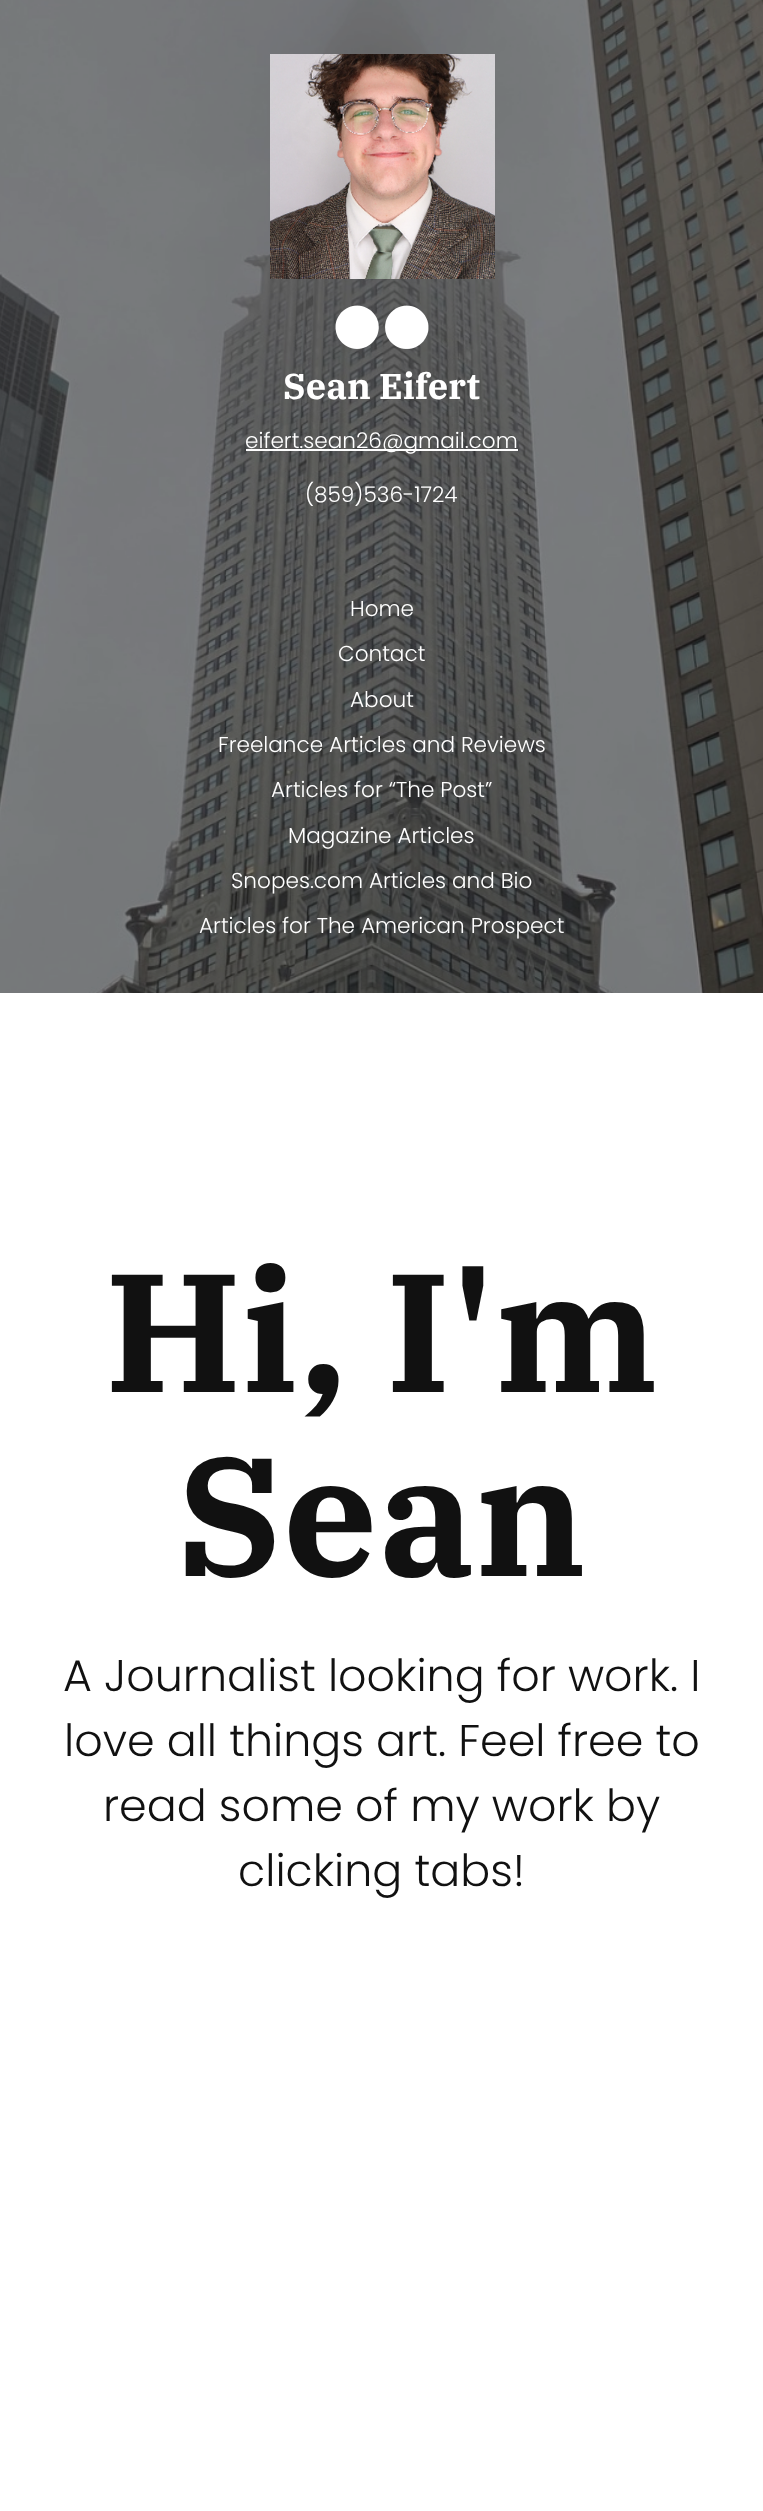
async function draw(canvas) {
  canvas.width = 763;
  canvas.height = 2511;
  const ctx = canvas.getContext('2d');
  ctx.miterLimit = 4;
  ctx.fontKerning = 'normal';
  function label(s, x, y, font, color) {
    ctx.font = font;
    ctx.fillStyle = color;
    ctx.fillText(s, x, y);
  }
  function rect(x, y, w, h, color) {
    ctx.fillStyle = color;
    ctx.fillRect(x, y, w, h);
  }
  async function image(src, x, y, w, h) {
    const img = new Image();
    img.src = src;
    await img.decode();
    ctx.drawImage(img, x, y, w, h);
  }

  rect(0, 0, 763, 2511, '#fff');
  await image('assets/img1.png', 0, 0, 763, 993);
  await image('assets/img2.png', 270, 54, 225, 225);
  await image('assets/img3.png', 335, 305, 44, 44);
  await image('assets/img4.png', 385, 305, 44, 44);
  label('Sean Eifert', 283, 399, 'bold 36px IBM Plex Serif', '#fff');
  rect(246, 449, 272, 2, '#fff');
  label('eifert.sean26@gmail.com', 245, 448, '300 21.6px Poppins', '#fff');
  label('(859)536-1724', 305, 502, '300 21.6px Poppins', '#fff');
  label('Home', 350, 616, '300 21.6px Poppins', '#fff');
  label('Contact', 338, 661, '300 21.6px Poppins', '#fff');
  label('About', 350, 707, '300 21.6px Poppins', '#fff');
  label('Freelance Articles and Reviews', 218, 752, '300 21.6px Poppins', '#fff');
  label('Articles for “The Post”', 271, 797, '300 21.6px Poppins', '#fff');
  label('Magazine Articles', 288, 843, '300 21.6px Poppins', '#fff');
  label('Snopes.com Articles and Bio', 231, 888, '300 21.6px Poppins', '#fff');
  label('Articles for The American Prospect', 199, 933, '300 21.6px Poppins', '#fff');
  label('Hi, I\'m', 105, 1392, 'bold 168px IBM Plex Serif', '#111');
  label('Sean', 177, 1576, 'bold 168px IBM Plex Serif', '#111');
  label('A Journalist looking for work. I', 63, 1691, '300 44.4px Poppins', '#111');
  label('love all things art. Feel free to', 64, 1756, '300 44.4px Poppins', '#111');
  label('read some of my work by', 103, 1821, '300 44.4px Poppins', '#111');
  label('clicking tabs!', 238, 1886, '300 44.4px Poppins', '#111');
}

draw(document.querySelector('canvas'));
